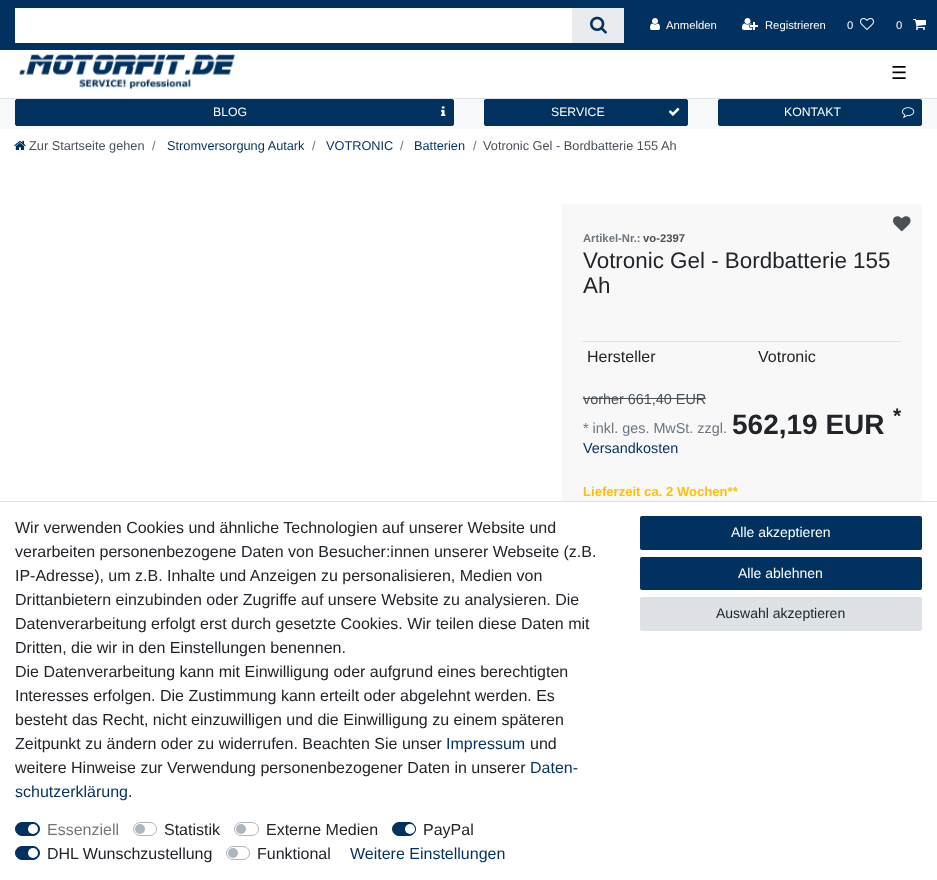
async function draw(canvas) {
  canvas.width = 937;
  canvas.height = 880;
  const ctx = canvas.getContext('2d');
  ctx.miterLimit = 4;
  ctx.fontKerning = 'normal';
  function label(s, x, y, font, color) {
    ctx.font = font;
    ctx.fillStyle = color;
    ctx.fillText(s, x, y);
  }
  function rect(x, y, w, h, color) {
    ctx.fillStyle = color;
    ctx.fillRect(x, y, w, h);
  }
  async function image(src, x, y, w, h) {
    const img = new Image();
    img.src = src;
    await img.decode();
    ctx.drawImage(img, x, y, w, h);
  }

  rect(0, 0, 937, 880, '#fff');
  rect(0, 0, 937, 50, '#01315f');
  rect(15, 8, 557, 35, '#fff');
  rect(572, 8, 52, 35, '#e9ecef');
  await image('assets/img1.png', 590, 16, 17, 18);
  await image('assets/img2.png', 650, 18, 10, 12);
  label('Anmelden', 666, 29, '11.25px Liberation Sans', '#fff');
  await image('assets/img3.png', 742, 18, 16, 12);
  label('Registrieren', 765, 29, '11.25px Liberation Sans', '#fff');
  label('0', 847, 29, '11.25px Liberation Sans', '#fff');
  await image('assets/img4.png', 860, 18, 14, 12);
  label('0', 896, 29, '11.25px Liberation Sans', '#fff');
  await image('assets/img5.png', 913, 19, 13, 11);
  rect(0, 98, 937, 1, '#dee2e6');
  await image('assets/img6.png', 19, 54, 217, 36);
  label('☰', 891, 79, '18px DejaVu Sans', '#000');
  rect(0, 99, 937, 30, '#f8f9fa');
  ctx.fillStyle = '#01315f';
  ctx.beginPath();
  ctx.roundRect(15.5, 99.5, 438, 26, 1.5);
  ctx.fill();
  ctx.strokeStyle = '#01315f';
  ctx.stroke();
  label('BLOG', 213, 116, '12.25px Liberation Sans', '#fff');
  await image('assets/img7.png', 441, 106, 5, 10);
  ctx.fillStyle = '#01315f';
  ctx.beginPath();
  ctx.roundRect(484.5, 99.5, 203, 26, 1.5);
  ctx.fill();
  ctx.stroke();
  label('SERVICE', 551, 116, '12.25px Liberation Sans', '#fff');
  await image('assets/img8.png', 668, 107, 12, 9);
  ctx.fillStyle = '#01315f';
  ctx.beginPath();
  ctx.roundRect(718.5, 99.5, 203, 26, 1.5);
  ctx.fill();
  ctx.stroke();
  label('KONTAKT', 784, 116, '12.25px Liberation Sans', '#fff');
  await image('assets/img9.png', 902, 107, 13, 11);
  await image('assets/img10.png', 14, 140, 12, 10);
  label('Zur Startseite gehen', 29, 150, '12.75px Liberation Sans', '#495057');
  label('/', 152, 150, '12.75px Liberation Sans', '#6c757d');
  label('Stromversorgung Autark', 167, 150, '12.75px Liberation Sans', '#01315f');
  label('/', 312, 150, '12.75px Liberation Sans', '#6c757d');
  label('VOTRONIC', 326, 150, '12.75px Liberation Sans', '#01315f');
  label('/', 400, 150, '12.75px Liberation Sans', '#6c757d');
  label('Batterien', 414, 150, '12.75px Liberation Sans', '#01315f');
  label('/', 473, 150, '12.75px Liberation Sans', '#6c757d');
  label('Votronic Gel - Bordbatterie 155 Ah', 483, 150, '12.75px Liberation Sans', '#495057');
  rect(562, 204, 360, 297, '#f8f8f8');
  await image('assets/img11.png', 893, 216, 18, 16);
  label('Artikel-Nr.:', 583, 242, 'bold 11.25px Liberation Sans', '#6c757d');
  label('vo-2397', 643, 242, 'bold 11.25px Liberation Sans', '#495057');
  label('Votronic Gel - Bordbatterie 155', 583, 268, '22.4px Liberation Sans', '#212529');
  label('Ah', 583, 293, '22.4px Liberation Sans', '#212529');
  label('Hersteller', 587, 362, '16px Liberation Sans', '#212529');
  rect(582, 341, 319, 1, '#dee2e6');
  label('Votronic', 758, 362, '16px Liberation Sans', '#212529');
  label('vorher 661,40 EUR', 583, 404, '14.4px Liberation Sans', '#495057');
  rect(583, 398, 123, 1, '#495057');
  label('*', 893, 423, 'bold 21px Liberation Sans', '#212529');
  label('562,19 EUR', 732, 434, 'bold 28px Liberation Sans', '#212529');
  label('* inkl. ges. MwSt. zzgl.', 583, 433, '14.4px Liberation Sans', '#6c757d');
  label('Versandkosten', 583, 453, '14.4px Liberation Sans', '#01315f');
  label('Lieferzeit ca. 2 Wochen**', 583, 496, 'bold 13.1px Liberation Sans', '#ffc107');
  rect(0, 501, 937, 1, '#dee2e6');
  label('Wir verwenden Cookies und ähnliche Technologien auf unserer Website und', 15, 533, '16px Liberation Sans', '#212529');
  label('verarbeiten personenbezogene Daten von Besucher:innen unserer Webseite (z.B.', 15, 557, '16px Liberation Sans', '#212529');
  label('IP-Adresse), um z.B. Inhalte und Anzeigen zu personalisieren, Medien von', 15, 581, '16px Liberation Sans', '#212529');
  label('Drittanbietern einzubinden oder Zugriffe auf unsere Website zu analysieren. Die', 15, 605, '16px Liberation Sans', '#212529');
  label('Datenverarbeitung erfolgt erst durch gesetzte Cookies. Wir teilen diese Daten mit', 15, 629, '16px Liberation Sans', '#212529');
  label('Dritten, die wir in den Einstellungen benennen.', 15, 653, '16px Liberation Sans', '#212529');
  label('Die Datenverarbeitung kann mit Einwilligung oder aufgrund eines berechtigten', 15, 677, '16px Liberation Sans', '#212529');
  label('Interesses erfolgen. Die Zustimmung kann erteilt oder abgelehnt werden. Es', 15, 701, '16px Liberation Sans', '#212529');
  label('besteht das Recht, nicht einzuwilligen und die Einwilligung zu einem späteren', 15, 725, '16px Liberation Sans', '#212529');
  label('Zeitpunkt zu ändern oder zu widerrufen. Beachten Sie unser', 15, 749, '16px Liberation Sans', '#212529');
  label('Impressum', 446, 749, '16px Liberation Sans', '#01315f');
  label('und', 530, 749, '16px Liberation Sans', '#212529');
  label('weitere Hinweise zur Verwendung personenbezogener Daten in unserer', 15, 773, '16px Liberation Sans', '#212529');
  label('Daten-', 530, 773, '16px Liberation Sans', '#01315f');
  label('schutzerklärung', 15, 797, '16px Liberation Sans', '#01315f');
  label('.', 128, 797, '16px Liberation Sans', '#212529');
  ctx.fillStyle = '#01315f';
  ctx.beginPath();
  ctx.roundRect(15.5, 822.5, 24, 13, 6.5);
  ctx.fill();
  ctx.stroke();
  label('Essenziell', 47, 835, '16px Liberation Sans', '#767676');
  ctx.fillStyle = '#fff';
  ctx.beginPath();
  ctx.arc(33, 829, 5, 0, 2 * Math.PI);
  ctx.fill();
  ctx.beginPath();
  ctx.roundRect(133.5, 822.5, 23, 13, 6.5);
  ctx.strokeStyle = '#adb5bd';
  ctx.stroke();
  label('Statistik', 164, 835, '16px Liberation Sans', '#212529');
  ctx.fillStyle = '#adb5bd';
  ctx.beginPath();
  ctx.arc(140, 829, 5, 0, 2 * Math.PI);
  ctx.fill();
  ctx.beginPath();
  ctx.roundRect(234.5, 822.5, 24, 13, 6.5);
  ctx.stroke();
  label('Externe Medien', 266, 835, '16px Liberation Sans', '#212529');
  ctx.fillStyle = '#adb5bd';
  ctx.beginPath();
  ctx.arc(241, 829, 5, 0, 2 * Math.PI);
  ctx.fill();
  ctx.fillStyle = '#01315f';
  ctx.beginPath();
  ctx.roundRect(392.5, 822.5, 23, 13, 6.5);
  ctx.fill();
  ctx.strokeStyle = '#01315f';
  ctx.stroke();
  label('PayPal', 423, 835, '16px Liberation Sans', '#212529');
  ctx.fillStyle = '#fff';
  ctx.beginPath();
  ctx.arc(410, 829, 5, 0, 2 * Math.PI);
  ctx.fill();
  ctx.fillStyle = '#01315f';
  ctx.beginPath();
  ctx.roundRect(15.5, 846.5, 24, 13, 6.5);
  ctx.fill();
  ctx.stroke();
  label('DHL Wunschzustellung', 47, 859, '16px Liberation Sans', '#212529');
  ctx.fillStyle = '#fff';
  ctx.beginPath();
  ctx.arc(33, 853, 5, 0, 2 * Math.PI);
  ctx.fill();
  ctx.beginPath();
  ctx.roundRect(226.5, 846.5, 23, 13, 6.5);
  ctx.strokeStyle = '#adb5bd';
  ctx.stroke();
  label('Funktional', 257, 859, '16px Liberation Sans', '#212529');
  ctx.fillStyle = '#adb5bd';
  ctx.beginPath();
  ctx.arc(233, 853, 5, 0, 2 * Math.PI);
  ctx.fill();
  label('Weitere Einstellungen', 350, 859, '16px Liberation Sans', '#01315f');
  ctx.beginPath();
  ctx.roundRect(640.5, 516.5, 281, 33, 1);
  ctx.fill();
  ctx.strokeStyle = '#01315f';
  ctx.stroke();
  label('Alle akzeptieren', 731, 537, '14px Liberation Sans', '#fff');
  ctx.fillStyle = '#01315f';
  ctx.beginPath();
  ctx.roundRect(640.5, 557.5, 281, 32, 1);
  ctx.fill();
  ctx.stroke();
  label('Alle ablehnen', 738, 578, '14px Liberation Sans', '#fff');
  ctx.fillStyle = '#dee2e6';
  ctx.beginPath();
  ctx.roundRect(640.5, 597.5, 281, 33, 1);
  ctx.fill();
  ctx.strokeStyle = '#dee2e6';
  ctx.stroke();
  label('Auswahl akzeptieren', 716, 618, '14px Liberation Sans', '#212529');
}

draw(document.querySelector('canvas'));
